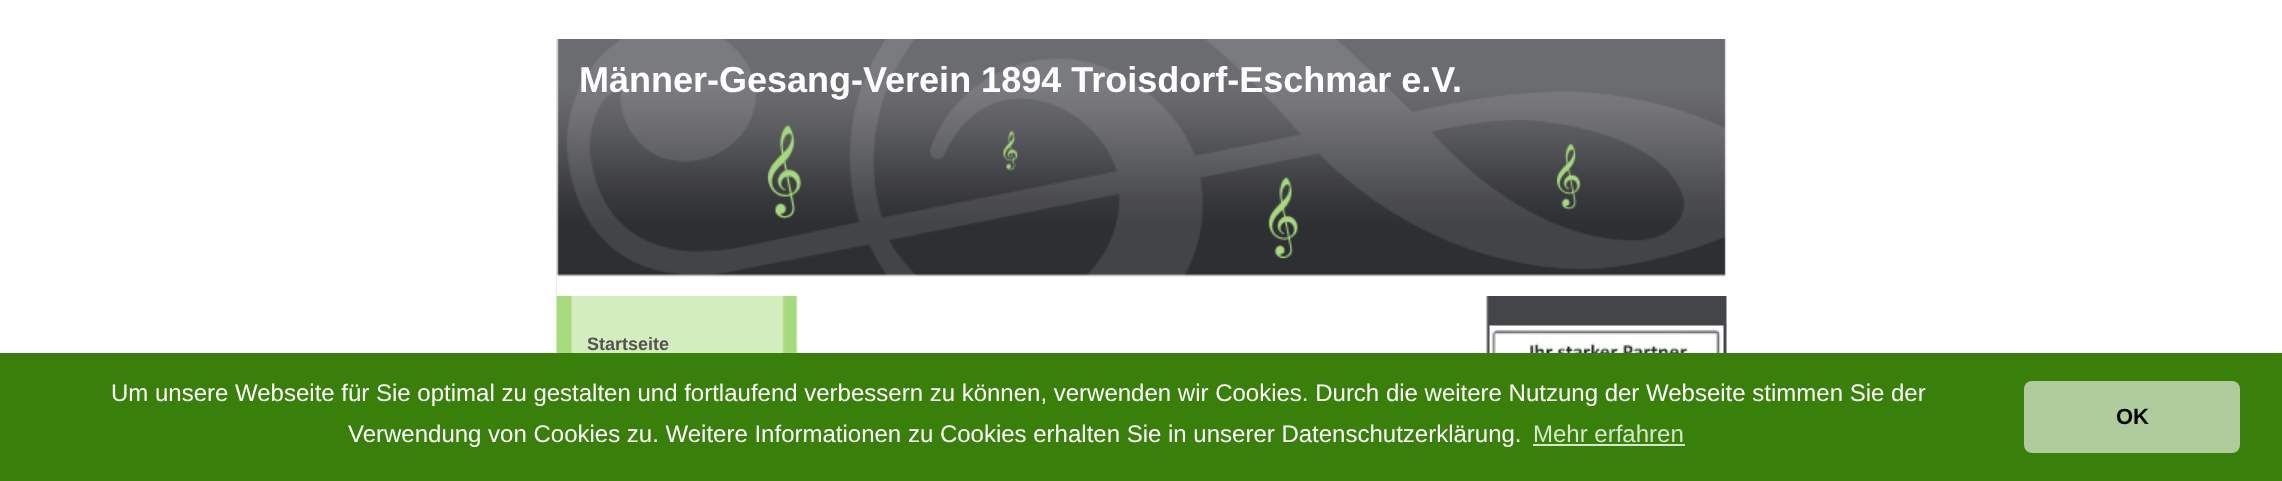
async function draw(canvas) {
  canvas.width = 2282;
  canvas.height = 481;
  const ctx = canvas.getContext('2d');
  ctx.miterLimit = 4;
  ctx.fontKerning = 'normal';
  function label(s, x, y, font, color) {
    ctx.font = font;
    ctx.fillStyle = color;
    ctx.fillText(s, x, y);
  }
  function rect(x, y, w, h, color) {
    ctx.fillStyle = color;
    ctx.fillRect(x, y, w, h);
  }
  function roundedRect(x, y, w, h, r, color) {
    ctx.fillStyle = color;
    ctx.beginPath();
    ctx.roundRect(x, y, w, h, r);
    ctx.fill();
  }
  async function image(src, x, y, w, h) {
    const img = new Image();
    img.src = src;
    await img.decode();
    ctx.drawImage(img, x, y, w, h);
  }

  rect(0, 0, 2282, 481, '#fff');
  await image('assets/img1.png', 556, 39, 1171, 314);
  rect(557, 39, 1170, 257, '#fff');
  await image('assets/img2.png', 556, 39, 1171, 257);
  label('Männer-Gesang-Verein 1894 Troisdorf-Eschmar e.V.', 579, 92, 'bold 36px Liberation Sans', '#fff');
  label('Startseite', 587, 350, 'bold 18px Liberation Sans', '#535353');
  await image('assets/img3.png', 1489, 325, 235, 28);
  rect(0, 353, 2282, 128, '#388009');
  label('Um unsere Webseite für Sie optimal zu gestalten und fortlaufend verbessern zu können, verwenden wir Cookies. Durch die weitere Nutzung der Webseite stimmen Sie der', 111, 401, '24px Liberation Sans', '#fff');
  label('Verwendung von Cookies zu. Weitere Informationen zu Cookies erhalten Sie in unserer Datenschutzerklärung.', 348, 442, '24px Liberation Sans', '#fff');
  label('Mehr erfahren', 1533, 442, '24px Liberation Sans', '#d7e6ce');
  rect(1533, 444, 152, 2, '#d7e6ce');
  roundedRect(2024, 381, 216, 72, 8, '#afcc9d');
  label('OK', 2116, 424, 'bold 22px Liberation Sans', '#000');
}

draw(document.querySelector('canvas'));
